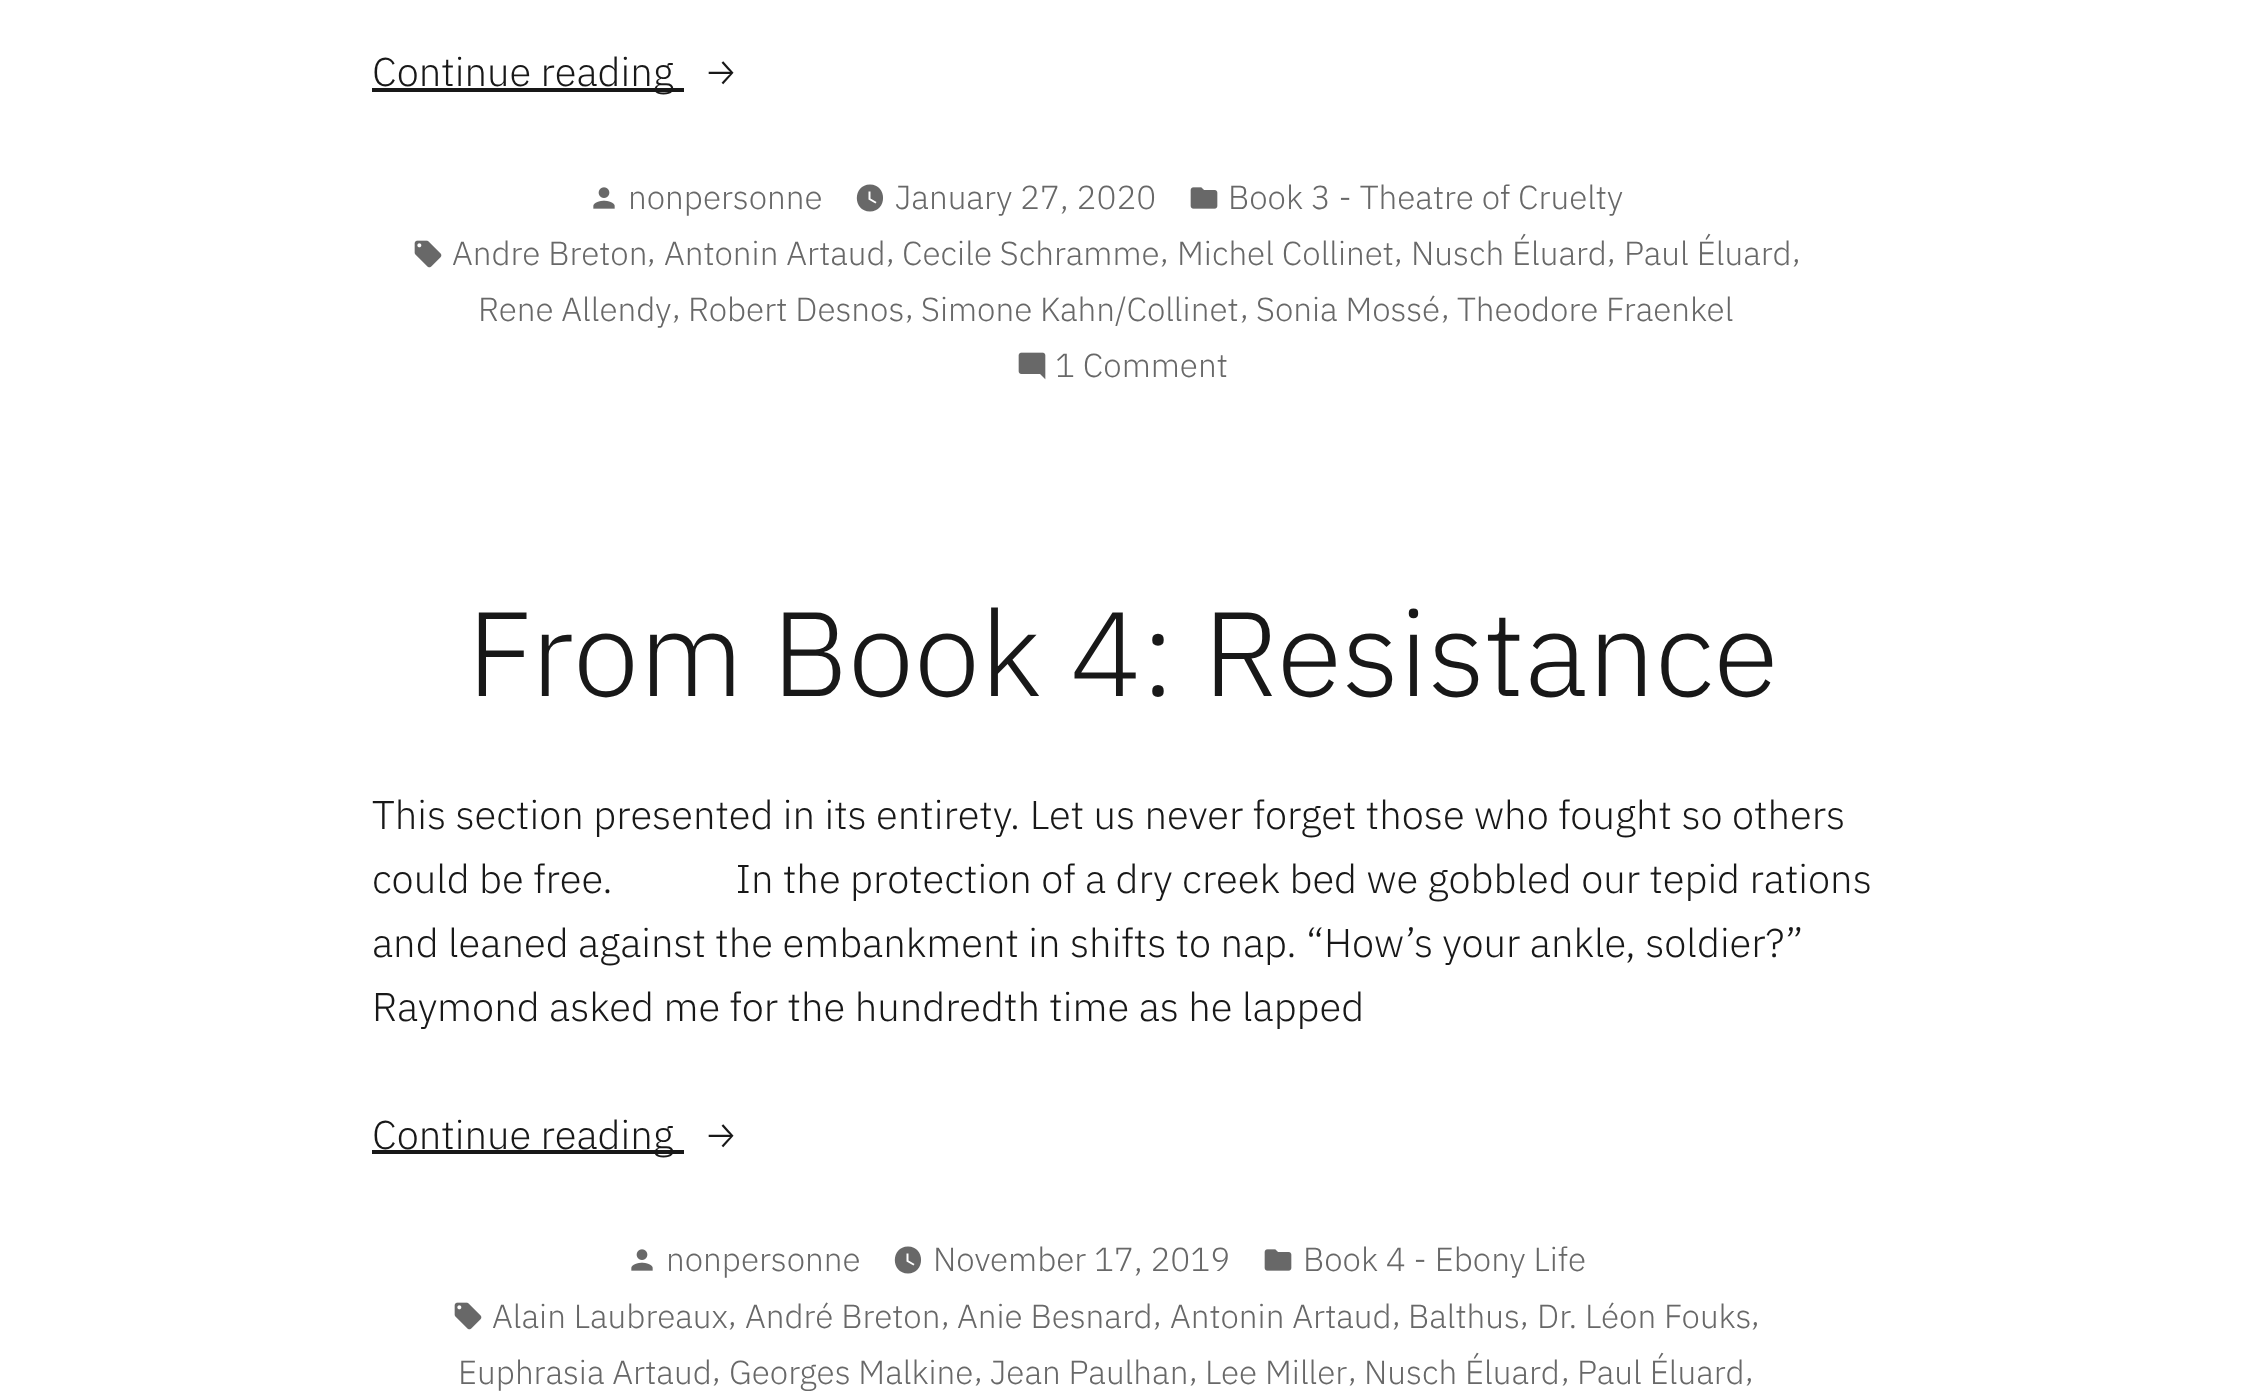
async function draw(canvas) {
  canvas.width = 2244;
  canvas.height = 1391;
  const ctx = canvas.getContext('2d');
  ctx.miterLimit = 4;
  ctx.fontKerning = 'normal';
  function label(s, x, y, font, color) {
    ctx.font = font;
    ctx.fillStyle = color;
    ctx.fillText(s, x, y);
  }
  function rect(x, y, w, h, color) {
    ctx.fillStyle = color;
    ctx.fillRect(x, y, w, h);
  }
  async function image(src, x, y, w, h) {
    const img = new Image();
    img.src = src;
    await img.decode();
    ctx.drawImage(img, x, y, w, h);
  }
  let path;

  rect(0, 0, 2244, 1391, '#fff');
  rect(372, 88, 312, 4, '#181818');
  label('Continue reading', 372, 86, '300 40px IBM Plex Sans', '#181818');
  label('→', 703, 86, '300 40px Fira Sans', '#181818');
  await image('assets/img1.png', 593, 187, 22, 22);
  label('nonpersonne', 628, 209, '300 33.25px IBM Plex Sans', '#686868');
  path = new Path2D('M870 184.5C852.5 184.5 852.5 211.5 870 211.5C887.5 211.5 887.5 184.5 870 184.5ZM875.5 203.5L868.5 199.5V191.5H870.5V198.5L876.5 202Z');
  ctx.fill(path);
  label('January 27, 2020', 895, 209, '300 33.25px IBM Plex Sans', '#686868');
  await image('assets/img2.png', 1190, 187, 28, 22);
  label('Book 3 - Theatre of Cruelty', 1228, 209, '300 33.25px IBM Plex Sans', '#686868');
  await image('assets/img3.png', 414, 240, 28, 28);
  label('Andre Breton', 452, 265, '300 33.25px IBM Plex Sans', '#686868');
  label(',', 647, 262, '300 33.25px IBM Plex Sans', '#686868');
  label('Antonin Artaud', 664, 265, '300 33.25px IBM Plex Sans', '#686868');
  label(',', 886, 262, '300 33.25px IBM Plex Sans', '#686868');
  label('Cecile Schramme', 902, 265, '300 33.25px IBM Plex Sans', '#686868');
  label(',', 1160, 262, '300 33.25px IBM Plex Sans', '#686868');
  label('Michel Collinet', 1177, 265, '300 33.25px IBM Plex Sans', '#686868');
  label(',', 1394, 262, '300 33.25px IBM Plex Sans', '#686868');
  label('Nusch Éluard', 1411, 265, '300 33.25px IBM Plex Sans', '#686868');
  label(',', 1607, 262, '300 33.25px IBM Plex Sans', '#686868');
  label('Paul Éluard', 1624, 265, '300 33.25px IBM Plex Sans', '#686868');
  label(',', 1792, 262, '300 33.25px IBM Plex Sans', '#686868');
  label('Rene Allendy', 478, 321, '300 33.25px IBM Plex Sans', '#686868');
  label(',', 672, 318, '300 33.25px IBM Plex Sans', '#686868');
  label('Robert Desnos', 688, 321, '300 33.25px IBM Plex Sans', '#686868');
  label(',', 905, 318, '300 33.25px IBM Plex Sans', '#686868');
  label('Simone Kahn/Collinet', 921, 321, '300 33.25px IBM Plex Sans', '#686868');
  label(',', 1240, 318, '300 33.25px IBM Plex Sans', '#686868');
  label('Sonia Mossé', 1256, 321, '300 33.25px IBM Plex Sans', '#686868');
  label(',', 1441, 318, '300 33.25px IBM Plex Sans', '#686868');
  label('Theodore Fraenkel', 1457, 321, '300 33.25px IBM Plex Sans', '#686868');
  await image('assets/img4.png', 1018, 352, 28, 28);
  label('1 Comment', 1055, 377, '300 33.25px IBM Plex Sans', '#686868');
  label('From Book 4: Resistance', 467, 696, '300 119.5px IBM Plex Sans', '#181818');
  label('This section presented in its entirety. Let us never forget those who fought so others', 372, 829, '300 40px IBM Plex Sans', '#181818');
  label('could be free.             In the protection of a dry creek bed we gobbled our tepid rations', 372, 893, '300 40px IBM Plex Sans', '#181818');
  label('and leaned against the embankment in shifts to nap. “How’s your ankle, soldier?”', 372, 957, '300 40px IBM Plex Sans', '#181818');
  label('Raymond asked me for the hundredth time as he lapped', 372, 1021, '300 40px IBM Plex Sans', '#181818');
  rect(372, 1150, 312, 4, '#181818');
  label('Continue reading', 372, 1149, '300 40px IBM Plex Sans', '#181818');
  label('→', 703, 1149, '300 40px Fira Sans', '#181818');
  await image('assets/img1.png', 631, 1249, 22, 22);
  label('nonpersonne', 666, 1271, '300 33.25px IBM Plex Sans', '#686868');
  path = new Path2D('M908 1246.5C890.5 1246.5 890.5 1273.5 908 1273.5C925.5 1273.5 925.5 1246.5 908 1246.5ZM913.5 1265.5L906.5 1261.5V1253.5H908.5V1260.5L914.5 1264Z');
  ctx.fill(path);
  label('November 17, 2019', 933, 1271, '300 33.25px IBM Plex Sans', '#686868');
  await image('assets/img2.png', 1264, 1249, 28, 22);
  label('Book 4 - Ebony Life', 1303, 1271, '300 33.25px IBM Plex Sans', '#686868');
  await image('assets/img3.png', 454, 1302, 28, 28);
  label('Alain Laubreaux', 492, 1328, '300 33.25px IBM Plex Sans', '#686868');
  label(',', 728, 1325, '300 33.25px IBM Plex Sans', '#686868');
  label('André Breton', 745, 1328, '300 33.25px IBM Plex Sans', '#686868');
  label(',', 941, 1325, '300 33.25px IBM Plex Sans', '#686868');
  label('Anie Besnard', 957, 1328, '300 33.25px IBM Plex Sans', '#686868');
  label(',', 1153, 1325, '300 33.25px IBM Plex Sans', '#686868');
  label('Antonin Artaud', 1170, 1328, '300 33.25px IBM Plex Sans', '#686868');
  label(',', 1392, 1325, '300 33.25px IBM Plex Sans', '#686868');
  label('Balthus', 1408, 1328, '300 33.25px IBM Plex Sans', '#686868');
  label(',', 1520, 1325, '300 33.25px IBM Plex Sans', '#686868');
  label('Dr. Léon Fouks', 1537, 1328, '300 33.25px IBM Plex Sans', '#686868');
  label(',', 1751, 1325, '300 33.25px IBM Plex Sans', '#686868');
  label('Euphrasia Artaud', 458, 1384, '300 33.25px IBM Plex Sans', '#686868');
  label(',', 712, 1381, '300 33.25px IBM Plex Sans', '#686868');
  label('Georges Malkine', 729, 1384, '300 33.25px IBM Plex Sans', '#686868');
  label(',', 974, 1381, '300 33.25px IBM Plex Sans', '#686868');
  label('Jean Paulhan', 990, 1384, '300 33.25px IBM Plex Sans', '#686868');
  label(',', 1189, 1381, '300 33.25px IBM Plex Sans', '#686868');
  label('Lee Miller', 1205, 1384, '300 33.25px IBM Plex Sans', '#686868');
  label(',', 1348, 1381, '300 33.25px IBM Plex Sans', '#686868');
  label('Nusch Éluard', 1364, 1384, '300 33.25px IBM Plex Sans', '#686868');
  label(',', 1561, 1381, '300 33.25px IBM Plex Sans', '#686868');
  label('Paul Éluard', 1577, 1384, '300 33.25px IBM Plex Sans', '#686868');
  label(',', 1745, 1381, '300 33.25px IBM Plex Sans', '#686868');
}

draw(document.querySelector('canvas'));
